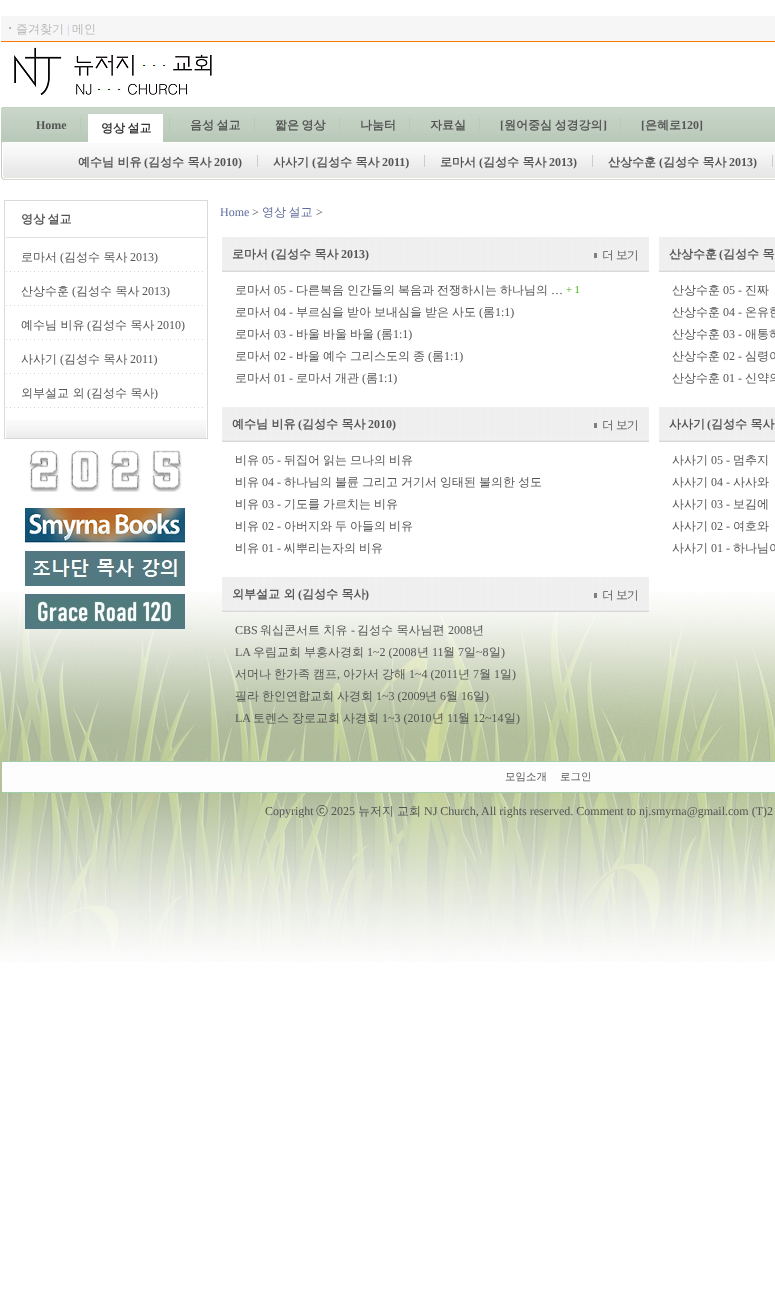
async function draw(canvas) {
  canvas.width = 775;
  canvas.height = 1289;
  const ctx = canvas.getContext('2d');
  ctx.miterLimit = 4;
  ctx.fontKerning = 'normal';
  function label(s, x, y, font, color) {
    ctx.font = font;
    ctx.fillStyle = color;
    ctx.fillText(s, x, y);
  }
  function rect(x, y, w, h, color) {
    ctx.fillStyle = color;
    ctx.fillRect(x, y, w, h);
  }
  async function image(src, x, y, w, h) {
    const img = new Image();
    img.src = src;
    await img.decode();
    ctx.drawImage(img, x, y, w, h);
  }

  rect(0, 0, 775, 1289, '#fff');
  await image('assets/img1.png', 0, 592, 775, 370);
  rect(1, 16, 774, 25, '#f6f6f6');
  label('ㆍ', 4, 33, 'bold 12px WenQuanYi Zen Hei', '#555');
  label('즐겨찾기', 16, 33, '500 12px WenQuanYi Zen Hei', '#bababa');
  label('|', 67, 33, '12px Liberation Serif', '#becbf9');
  label('메인', 72, 33, '500 12px WenQuanYi Zen Hei', '#bababa');
  rect(1, 41, 774, 1, '#f70');
  await image('assets/img2.png', 14, 47, 198, 48);
  await image('assets/img3.png', 1, 107, 4, 73);
  await image('assets/img4.png', 5, 107, 770, 73);
  label('Home', 36, 129, 'bold 12px Liberation Serif', '#555');
  rect(80, 118, 1, 14, '#b9cab9');
  rect(88, 114, 75, 28, '#fff');
  ctx.wordSpacing = '-1px';
  label('영상 설교', 101, 132, 'bold 12px WenQuanYi Zen Hei', '#333');
  rect(169, 118, 1, 14, '#b9cab9');
  label('음성 설교', 190, 129, 'bold 12px WenQuanYi Zen Hei', '#555');
  rect(254, 118, 1, 14, '#b9cab9');
  label('짧은 영상', 275, 129, 'bold 12px WenQuanYi Zen Hei', '#555');
  rect(339, 118, 1, 14, '#b9cab9');
  ctx.wordSpacing = '0px';
  label('나눔터', 360, 129, 'bold 12px WenQuanYi Zen Hei', '#555');
  rect(409, 118, 1, 14, '#b9cab9');
  label('자료실', 430, 129, 'bold 12px WenQuanYi Zen Hei', '#555');
  rect(479, 118, 1, 14, '#b9cab9');
  label('[', 500, 129, 'bold 12px Liberation Serif', '#555');
  ctx.wordSpacing = '-1px';
  label('원어중심 성경강의', 504, 129, 'bold 12px WenQuanYi Zen Hei', '#555');
  ctx.wordSpacing = '0px';
  label(']', 603, 129, 'bold 12px Liberation Serif', '#555');
  rect(620, 118, 1, 14, '#b9cab9');
  label('[', 641, 129, 'bold 12px Liberation Serif', '#555');
  label('은혜로', 645, 129, 'bold 12px WenQuanYi Zen Hei', '#555');
  label('120]', 681, 129, 'bold 12px Liberation Serif', '#555');
  label('예수님 비유', 78, 166, 'bold 12px WenQuanYi Zen Hei', '#555');
  label('(', 144, 166, 'bold 12px Liberation Serif', '#555');
  label('김성수 목사', 148, 166, 'bold 12px WenQuanYi Zen Hei', '#555');
  label('2010)', 214, 166, 'bold 12px Liberation Serif', '#555');
  rect(257, 155, 1, 12, '#ccc');
  label('사사기', 273, 166, 'bold 12px WenQuanYi Zen Hei', '#555');
  label('(', 312, 166, 'bold 12px Liberation Serif', '#555');
  label('김성수 목사', 316, 166, 'bold 12px WenQuanYi Zen Hei', '#555');
  label('2011)', 382, 166, 'bold 12px Liberation Serif', '#555');
  rect(424, 155, 1, 12, '#ccc');
  label('로마서', 440, 166, 'bold 12px WenQuanYi Zen Hei', '#555');
  label('(', 479, 166, 'bold 12px Liberation Serif', '#555');
  label('김성수 목사', 483, 166, 'bold 12px WenQuanYi Zen Hei', '#555');
  label('2013)', 549, 166, 'bold 12px Liberation Serif', '#555');
  rect(592, 155, 1, 12, '#ccc');
  label('산상수훈', 608, 166, 'bold 12px WenQuanYi Zen Hei', '#555');
  label('(', 659, 166, 'bold 12px Liberation Serif', '#555');
  label('김성수 목사', 663, 166, 'bold 12px WenQuanYi Zen Hei', '#555');
  label('2013)', 729, 166, 'bold 12px Liberation Serif', '#555');
  rect(772, 155, 1, 12, '#ccc');
  ctx.strokeStyle = '#d9d9d9';
  ctx.strokeRect(4.5, 200.5, 203, 238);
  rect(6, 237, 200, 1, '#dfdfdf');
  ctx.wordSpacing = '-1px';
  label('영상 설교', 21, 223, 'bold 12px WenQuanYi Zen Hei', '#555');
  ctx.wordSpacing = '0px';
  label('로마서', 21, 261, '500 12px WenQuanYi Zen Hei', '#555');
  label('(', 60, 261, '12px Liberation Serif', '#555');
  label('김성수 목사', 64, 261, '500 12px WenQuanYi Zen Hei', '#555');
  label('2013)', 130, 261, '12px Liberation Serif', '#555');
  await image('assets/img5.png', 6, 271, 197, 1);
  label('산상수훈', 21, 295, '500 12px WenQuanYi Zen Hei', '#555');
  label('(', 72, 295, '12px Liberation Serif', '#555');
  label('김성수 목사', 76, 295, '500 12px WenQuanYi Zen Hei', '#555');
  label('2013)', 142, 295, '12px Liberation Serif', '#555');
  await image('assets/img5.png', 6, 305, 197, 1);
  label('예수님 비유', 21, 329, '500 12px WenQuanYi Zen Hei', '#555');
  label('(', 87, 329, '12px Liberation Serif', '#555');
  label('김성수 목사', 91, 329, '500 12px WenQuanYi Zen Hei', '#555');
  label('2010)', 157, 329, '12px Liberation Serif', '#555');
  await image('assets/img5.png', 6, 339, 197, 1);
  label('사사기', 21, 363, '500 12px WenQuanYi Zen Hei', '#555');
  label('(', 60, 363, '12px Liberation Serif', '#555');
  label('김성수 목사', 64, 363, '500 12px WenQuanYi Zen Hei', '#555');
  label('2011)', 130, 363, '12px Liberation Serif', '#555');
  await image('assets/img5.png', 6, 373, 197, 1);
  label('외부설교 외', 21, 397, '500 12px WenQuanYi Zen Hei', '#555');
  label('(', 87, 397, '12px Liberation Serif', '#555');
  label('김성수 목사', 91, 397, '500 12px WenQuanYi Zen Hei', '#555');
  label(')', 154, 397, '12px Liberation Serif', '#555');
  await image('assets/img5.png', 6, 407, 197, 1);
  await image('assets/img6.png', 6, 420, 200, 18);
  await image('assets/img7.png', 29, 450, 153, 42);
  await image('assets/img8.png', 25, 508, 160, 35);
  await image('assets/img9.png', 25, 551, 160, 35);
  await image('assets/img10.png', 25, 594, 160, 35);
  label('Home', 220, 216, '12px Liberation Serif', '#606d9e');
  label('>', 252, 216, '12px Liberation Serif', '#555');
  ctx.wordSpacing = '-1px';
  label('영상 설교', 262, 216, '500 12px WenQuanYi Zen Hei', '#606d9e');
  ctx.wordSpacing = '0px';
  label('>', 316, 216, '12px Liberation Serif', '#555');
  await image('assets/img11.png', 222, 237, 427, 35);
  label('로마서', 232, 258, 'bold 12px WenQuanYi Zen Hei', '#555');
  label('(', 271, 258, 'bold 12px Liberation Serif', '#555');
  label('김성수 목사', 275, 258, 'bold 12px WenQuanYi Zen Hei', '#555');
  label('2013)', 341, 258, 'bold 12px Liberation Serif', '#555');
  rect(594, 253, 3, 5, '#7e7e7e');
  ctx.letterSpacing = '-1px';
  label('더 보기', 602, 260, '12px Dotum', '#555');
  ctx.letterSpacing = '0px';
  label('로마서', 235, 294, '500 12px WenQuanYi Zen Hei', '#555');
  label('05 -', 274, 294, '12px Liberation Serif', '#555');
  label('다른복음', 296, 294, '500 12px WenQuanYi Zen Hei', '#555');
  label('인간들의', 347, 294, '500 12px WenQuanYi Zen Hei', '#555');
  label('복음과', 398, 294, '500 12px WenQuanYi Zen Hei', '#555');
  label('전쟁하시는', 437, 294, '500 12px WenQuanYi Zen Hei', '#555');
  label('하나님의', 500, 294, '500 12px WenQuanYi Zen Hei', '#555');
  label('…', 551, 294, '12px Liberation Serif', '#555');
  label('+ 1', 566, 293, '10.5px Liberation Serif', '#43b20d');
  label('로마서', 235, 316, '500 12px WenQuanYi Zen Hei', '#555');
  label('04 -', 274, 316, '12px Liberation Serif', '#555');
  label('부르심을', 296, 316, '500 12px WenQuanYi Zen Hei', '#555');
  label('받아', 347, 316, '500 12px WenQuanYi Zen Hei', '#555');
  label('보내심을', 374, 316, '500 12px WenQuanYi Zen Hei', '#555');
  label('받은', 425, 316, '500 12px WenQuanYi Zen Hei', '#555');
  label('사도', 452, 316, '500 12px WenQuanYi Zen Hei', '#555');
  label('(', 479, 316, '12px Liberation Serif', '#555');
  label('롬', 483, 316, '500 12px WenQuanYi Zen Hei', '#555');
  label('1:1)', 495, 316, '12px Liberation Serif', '#555');
  label('로마서', 235, 338, '500 12px WenQuanYi Zen Hei', '#555');
  label('03 -', 274, 338, '12px Liberation Serif', '#555');
  label('바울', 296, 338, '500 12px WenQuanYi Zen Hei', '#555');
  label('바울', 323, 338, '500 12px WenQuanYi Zen Hei', '#555');
  label('바울', 350, 338, '500 12px WenQuanYi Zen Hei', '#555');
  label('(', 377, 338, '12px Liberation Serif', '#555');
  label('롬', 381, 338, '500 12px WenQuanYi Zen Hei', '#555');
  label('1:1)', 393, 338, '12px Liberation Serif', '#555');
  label('로마서', 235, 360, '500 12px WenQuanYi Zen Hei', '#555');
  label('02 -', 274, 360, '12px Liberation Serif', '#555');
  label('바울', 296, 360, '500 12px WenQuanYi Zen Hei', '#555');
  label('예수', 323, 360, '500 12px WenQuanYi Zen Hei', '#555');
  label('그리스도의', 350, 360, '500 12px WenQuanYi Zen Hei', '#555');
  label('종', 413, 360, '500 12px WenQuanYi Zen Hei', '#555');
  label('(', 428, 360, '12px Liberation Serif', '#555');
  label('롬', 432, 360, '500 12px WenQuanYi Zen Hei', '#555');
  label('1:1)', 444, 360, '12px Liberation Serif', '#555');
  label('로마서', 235, 382, '500 12px WenQuanYi Zen Hei', '#555');
  label('01 -', 274, 382, '12px Liberation Serif', '#555');
  label('로마서', 296, 382, '500 12px WenQuanYi Zen Hei', '#555');
  label('개관', 335, 382, '500 12px WenQuanYi Zen Hei', '#555');
  label('(', 362, 382, '12px Liberation Serif', '#555');
  label('롬', 366, 382, '500 12px WenQuanYi Zen Hei', '#555');
  label('1:1)', 378, 382, '12px Liberation Serif', '#555');
  await image('assets/img12.png', 659, 237, 116, 35);
  label('산상수훈', 669, 258, 'bold 12px WenQuanYi Zen Hei', '#555');
  label('(', 719, 258, 'bold 12px Liberation Serif', '#555');
  label('김성수 목', 723, 258, 'bold 12px WenQuanYi Zen Hei', '#555');
  label('산상수훈', 672, 294, '500 12px WenQuanYi Zen Hei', '#555');
  label('05 -', 723, 294, '12px Liberation Serif', '#555');
  label('진짜', 745, 294, '500 12px WenQuanYi Zen Hei', '#555');
  label('산상수훈', 672, 316, '500 12px WenQuanYi Zen Hei', '#555');
  label('04 -', 723, 316, '12px Liberation Serif', '#555');
  label('온유한', 745, 316, '500 12px WenQuanYi Zen Hei', '#555');
  label('산상수훈', 672, 338, '500 12px WenQuanYi Zen Hei', '#555');
  label('03 -', 723, 338, '12px Liberation Serif', '#555');
  label('애통하', 745, 338, '500 12px WenQuanYi Zen Hei', '#555');
  label('산상수훈', 672, 360, '500 12px WenQuanYi Zen Hei', '#555');
  label('02 -', 723, 360, '12px Liberation Serif', '#555');
  label('심령이', 745, 360, '500 12px WenQuanYi Zen Hei', '#555');
  label('산상수훈', 672, 382, '500 12px WenQuanYi Zen Hei', '#555');
  label('01 -', 723, 382, '12px Liberation Serif', '#555');
  label('신약의', 745, 382, '500 12px WenQuanYi Zen Hei', '#555');
  await image('assets/img11.png', 222, 407, 427, 35);
  label('예수님 비유', 232, 428, 'bold 12px WenQuanYi Zen Hei', '#555');
  label('(', 298, 428, 'bold 12px Liberation Serif', '#555');
  label('김성수 목사', 302, 428, 'bold 12px WenQuanYi Zen Hei', '#555');
  label('2010)', 368, 428, 'bold 12px Liberation Serif', '#555');
  rect(594, 423, 3, 5, '#7e7e7e');
  ctx.letterSpacing = '-1px';
  label('더 보기', 602, 430, '12px Dotum', '#555');
  ctx.letterSpacing = '0px';
  label('비유', 235, 464, '500 12px WenQuanYi Zen Hei', '#555');
  label('05 -', 262, 464, '12px Liberation Serif', '#555');
  label('뒤집어', 284, 464, '500 12px WenQuanYi Zen Hei', '#555');
  label('읽는', 323, 464, '500 12px WenQuanYi Zen Hei', '#555');
  label('므나의', 350, 464, '500 12px WenQuanYi Zen Hei', '#555');
  label('비유', 389, 464, '500 12px WenQuanYi Zen Hei', '#555');
  label('비유', 235, 486, '500 12px WenQuanYi Zen Hei', '#555');
  label('04 -', 262, 486, '12px Liberation Serif', '#555');
  label('하나님의', 284, 486, '500 12px WenQuanYi Zen Hei', '#555');
  label('불륜', 335, 486, '500 12px WenQuanYi Zen Hei', '#555');
  label('그리고', 362, 486, '500 12px WenQuanYi Zen Hei', '#555');
  label('거기서', 401, 486, '500 12px WenQuanYi Zen Hei', '#555');
  label('잉태된', 440, 486, '500 12px WenQuanYi Zen Hei', '#555');
  label('불의한', 479, 486, '500 12px WenQuanYi Zen Hei', '#555');
  label('성도', 518, 486, '500 12px WenQuanYi Zen Hei', '#555');
  label('비유', 235, 508, '500 12px WenQuanYi Zen Hei', '#555');
  label('03 -', 262, 508, '12px Liberation Serif', '#555');
  label('기도를', 284, 508, '500 12px WenQuanYi Zen Hei', '#555');
  label('가르치는', 323, 508, '500 12px WenQuanYi Zen Hei', '#555');
  label('비유', 374, 508, '500 12px WenQuanYi Zen Hei', '#555');
  label('비유', 235, 530, '500 12px WenQuanYi Zen Hei', '#555');
  label('02 -', 262, 530, '12px Liberation Serif', '#555');
  label('아버지와', 284, 530, '500 12px WenQuanYi Zen Hei', '#555');
  label('두', 335, 530, '500 12px WenQuanYi Zen Hei', '#555');
  label('아들의', 350, 530, '500 12px WenQuanYi Zen Hei', '#555');
  label('비유', 389, 530, '500 12px WenQuanYi Zen Hei', '#555');
  label('비유', 235, 552, '500 12px WenQuanYi Zen Hei', '#555');
  label('01 -', 262, 552, '12px Liberation Serif', '#555');
  label('씨뿌리는자의', 284, 552, '500 12px WenQuanYi Zen Hei', '#555');
  label('비유', 359, 552, '500 12px WenQuanYi Zen Hei', '#555');
  await image('assets/img12.png', 659, 407, 116, 35);
  label('사사기', 669, 428, 'bold 12px WenQuanYi Zen Hei', '#555');
  label('(', 707, 428, 'bold 12px Liberation Serif', '#555');
  label('김성수 목사', 711, 428, 'bold 12px WenQuanYi Zen Hei', '#555');
  label('사사기', 672, 464, '500 12px WenQuanYi Zen Hei', '#555');
  label('05 -', 711, 464, '12px Liberation Serif', '#555');
  label('멈추지', 733, 464, '500 12px WenQuanYi Zen Hei', '#555');
  label('사사기', 672, 486, '500 12px WenQuanYi Zen Hei', '#555');
  label('04 -', 711, 486, '12px Liberation Serif', '#555');
  label('사사와', 733, 486, '500 12px WenQuanYi Zen Hei', '#555');
  label('사사기', 672, 508, '500 12px WenQuanYi Zen Hei', '#555');
  label('03 -', 711, 508, '12px Liberation Serif', '#555');
  label('보김에', 733, 508, '500 12px WenQuanYi Zen Hei', '#555');
  label('사사기', 672, 530, '500 12px WenQuanYi Zen Hei', '#555');
  label('02 -', 711, 530, '12px Liberation Serif', '#555');
  label('여호와', 733, 530, '500 12px WenQuanYi Zen Hei', '#555');
  label('사사기', 672, 552, '500 12px WenQuanYi Zen Hei', '#555');
  label('01 -', 711, 552, '12px Liberation Serif', '#555');
  label('하나님이', 733, 552, '500 12px WenQuanYi Zen Hei', '#555');
  await image('assets/img11.png', 222, 577, 427, 35);
  label('외부설교 외', 232, 598, 'bold 12px WenQuanYi Zen Hei', '#555');
  label('(', 298, 598, 'bold 12px Liberation Serif', '#555');
  label('김성수 목사', 302, 598, 'bold 12px WenQuanYi Zen Hei', '#555');
  label(')', 365, 598, 'bold 12px Liberation Serif', '#555');
  rect(594, 593, 3, 5, '#7e7e7e');
  ctx.letterSpacing = '-1px';
  label('더 보기', 602, 600, '12px Dotum', '#555');
  ctx.letterSpacing = '0px';
  label('CBS', 235, 634, '12px Liberation Serif', '#555');
  label('워십콘서트 치유', 260, 634, '500 12px WenQuanYi Zen Hei', '#555');
  label('-', 351, 634, '12px Liberation Serif', '#555');
  label('김성수 목사님편', 357, 634, '500 12px WenQuanYi Zen Hei', '#555');
  label('2008', 448, 634, '12px Liberation Serif', '#555');
  label('년', 472, 634, '500 12px WenQuanYi Zen Hei', '#555');
  label('LA', 235, 656, '12px Liberation Serif', '#555');
  label('우림교회', 253, 656, '500 12px WenQuanYi Zen Hei', '#555');
  label('부흥사경회', 304, 656, '500 12px WenQuanYi Zen Hei', '#555');
  label('1~2 (2008', 367, 656, '12px Liberation Serif', '#555');
  label('년', 417, 656, '500 12px WenQuanYi Zen Hei', '#555');
  label('11', 432, 656, '12px Liberation Serif', '#555');
  label('월', 443, 656, '500 12px WenQuanYi Zen Hei', '#555');
  label('7', 458, 656, '12px Liberation Serif', '#555');
  label('일', 464, 656, '500 12px WenQuanYi Zen Hei', '#555');
  label('~8', 476, 656, '12px Liberation Serif', '#555');
  label('일', 489, 656, '500 12px WenQuanYi Zen Hei', '#555');
  label(')', 501, 656, '12px Liberation Serif', '#555');
  label('서머나', 235, 678, '500 12px WenQuanYi Zen Hei', '#555');
  label('한가족', 274, 678, '500 12px WenQuanYi Zen Hei', '#555');
  label('캠프', 313, 678, '500 12px WenQuanYi Zen Hei', '#555');
  label(',', 337, 678, '12px Liberation Serif', '#555');
  label('아가서', 343, 678, '500 12px WenQuanYi Zen Hei', '#555');
  label('강해', 382, 678, '500 12px WenQuanYi Zen Hei', '#555');
  label('1~4 (2011', 409, 678, '12px Liberation Serif', '#555');
  label('년', 458, 678, '500 12px WenQuanYi Zen Hei', '#555');
  label('7', 473, 678, '12px Liberation Serif', '#555');
  label('월', 479, 678, '500 12px WenQuanYi Zen Hei', '#555');
  label('1', 494, 678, '12px Liberation Serif', '#555');
  label('일', 500, 678, '500 12px WenQuanYi Zen Hei', '#555');
  label(')', 512, 678, '12px Liberation Serif', '#555');
  label('필라', 235, 700, '500 12px WenQuanYi Zen Hei', '#555');
  label('한인연합교회', 262, 700, '500 12px WenQuanYi Zen Hei', '#555');
  label('사경회', 337, 700, '500 12px WenQuanYi Zen Hei', '#555');
  label('1~3 (2009', 376, 700, '12px Liberation Serif', '#555');
  label('년', 425, 700, '500 12px WenQuanYi Zen Hei', '#555');
  label('6', 440, 700, '12px Liberation Serif', '#555');
  label('월', 446, 700, '500 12px WenQuanYi Zen Hei', '#555');
  label('16', 461, 700, '12px Liberation Serif', '#555');
  label('일', 473, 700, '500 12px WenQuanYi Zen Hei', '#555');
  label(')', 485, 700, '12px Liberation Serif', '#555');
  label('LA', 235, 722, '12px Liberation Serif', '#555');
  label('토렌스', 253, 722, '500 12px WenQuanYi Zen Hei', '#555');
  label('장로교회', 292, 722, '500 12px WenQuanYi Zen Hei', '#555');
  label('사경회', 343, 722, '500 12px WenQuanYi Zen Hei', '#555');
  label('1~3 (2010', 382, 722, '12px Liberation Serif', '#555');
  label('년', 432, 722, '500 12px WenQuanYi Zen Hei', '#555');
  label('11', 447, 722, '12px Liberation Serif', '#555');
  label('월', 458, 722, '500 12px WenQuanYi Zen Hei', '#555');
  label('12~14', 473, 722, '12px Liberation Serif', '#555');
  label('일', 504, 722, '500 12px WenQuanYi Zen Hei', '#555');
  label(')', 516, 722, '12px Liberation Serif', '#555');
  rect(2, 761, 773, 1, '#a1cfaa');
  rect(2, 762, 773, 30, '#fdfdfd');
  label('모임소개', 505, 780, '500 10.5px WenQuanYi Zen Hei', '#555');
  label('로그인', 560, 780, '500 10.5px WenQuanYi Zen Hei', '#555');
  rect(2, 792, 773, 1, '#a1cfaa');
  label('Copyright', 265, 815, '12px Liberation Serif', '#555');
  label('ⓒ', 316, 815, '500 12px WenQuanYi Zen Hei', '#555');
  label('2025', 331, 815, '12px Liberation Serif', '#555');
  label('뉴저지', 358, 815, '500 12px WenQuanYi Zen Hei', '#555');
  label('교회', 397, 815, '500 12px WenQuanYi Zen Hei', '#555');
  label('NJ Church, All rights reserved. Comment to nj.smyrna@gmail.com (T)2', 424, 815, '12px Liberation Serif', '#555');
}

draw(document.querySelector('canvas'));
